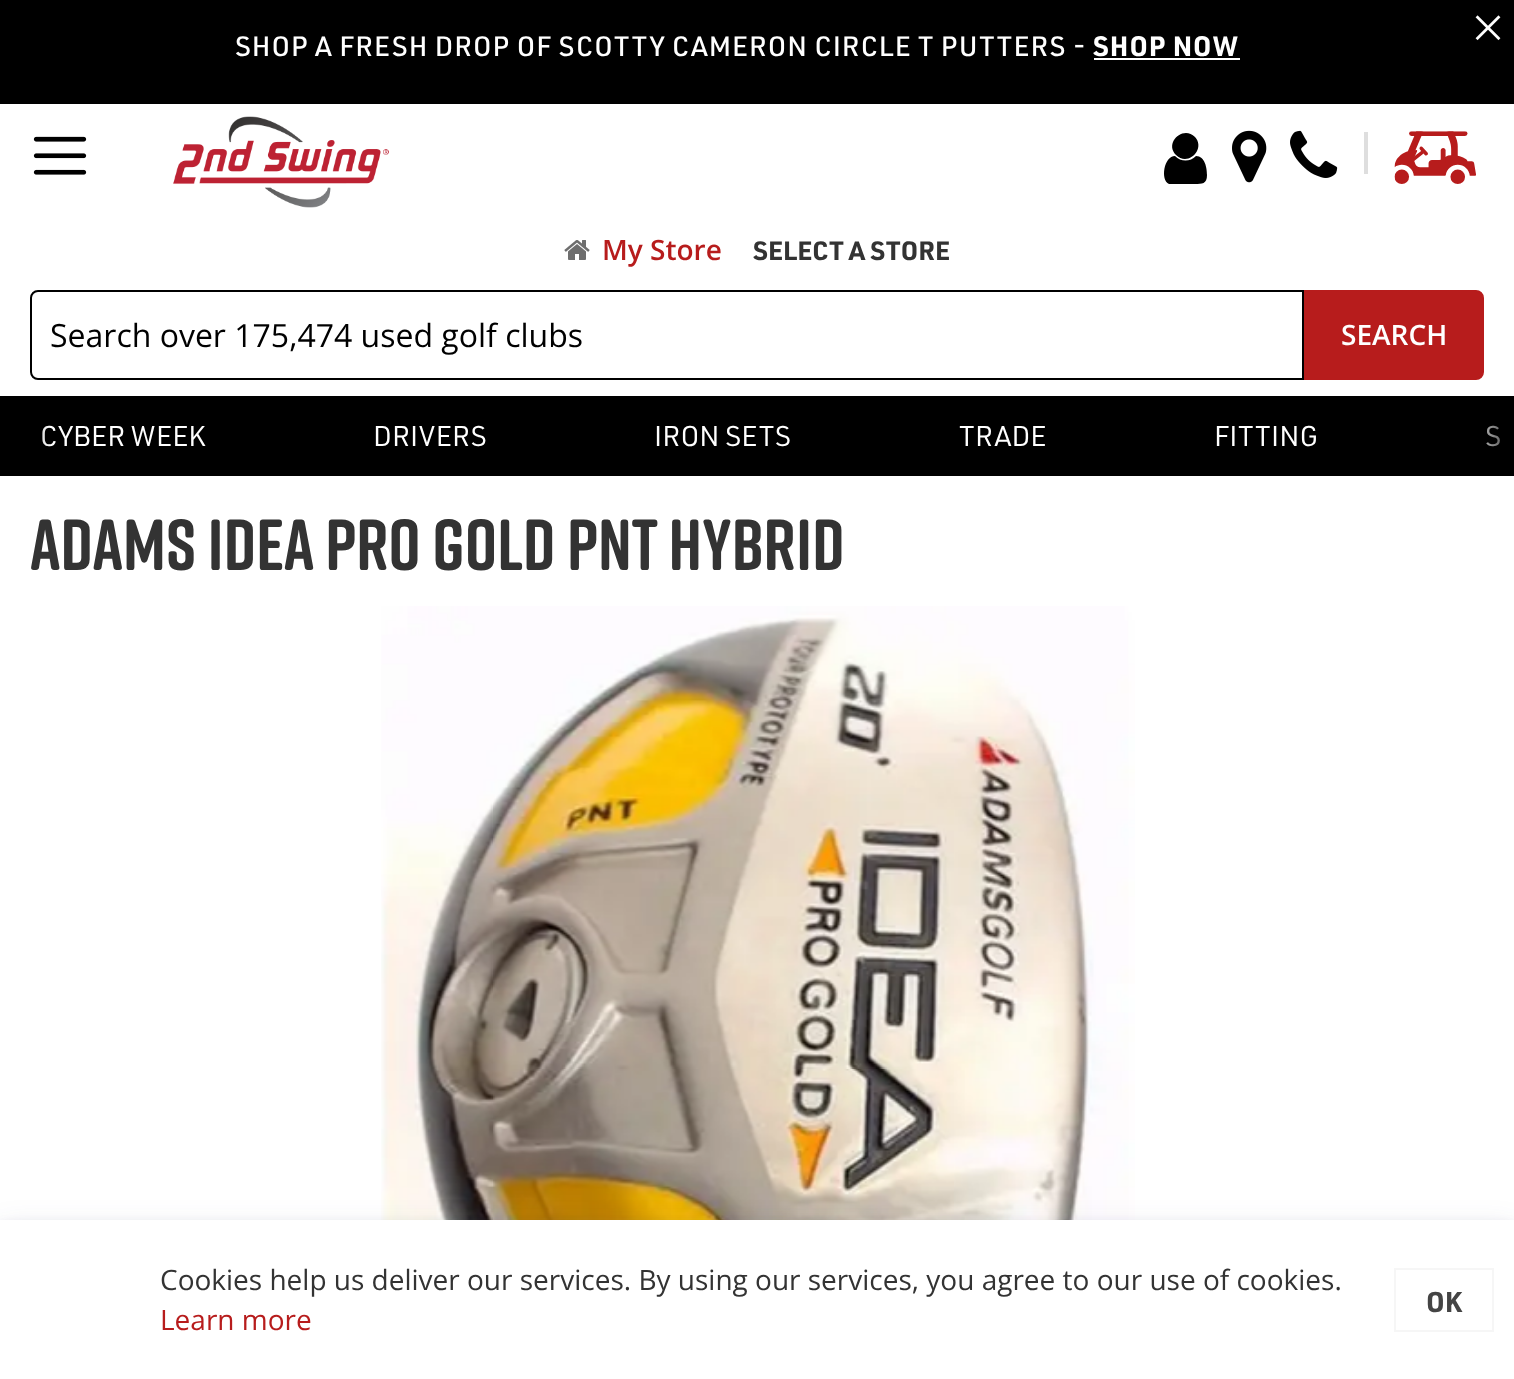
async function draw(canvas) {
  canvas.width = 1514;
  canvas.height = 1379;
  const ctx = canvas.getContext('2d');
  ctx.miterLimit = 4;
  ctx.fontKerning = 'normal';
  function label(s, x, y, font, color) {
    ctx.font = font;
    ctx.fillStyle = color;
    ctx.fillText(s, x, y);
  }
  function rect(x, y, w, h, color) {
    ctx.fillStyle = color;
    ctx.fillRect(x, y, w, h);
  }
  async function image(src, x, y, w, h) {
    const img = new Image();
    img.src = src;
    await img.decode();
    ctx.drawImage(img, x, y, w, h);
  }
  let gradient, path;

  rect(0, 0, 1514, 1379, '#fff');
  rect(0, 0, 1514, 104, '#000');
  await image('assets/img1.png', 1475, 15, 26, 26);
  ctx.letterSpacing = '1px';
  label('SHOP A FRESH DROP OF SCOTTY CAMERON CIRCLE T PUTTERS -', 235, 56, '500 27.45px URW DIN', '#fff');
  label('SHOP NOW', 1093, 56, 'bold 27.45px URW DIN', '#fff');
  rect(1094, 58, 146, 2, '#fff');
  await image('assets/img2.png', 33, 136, 54, 39);
  await image('assets/img3.png', 173, 116, 216, 92);
  ctx.fillStyle = '#000';
  path = new Path2D('M1207 175C1207 184 1202 184 1195 184H1169C1160 180 1164 156 1175 156C1181 162 1190 162 1196 156C1205 156 1207 168 1207 175ZM1195 137C1206 149 1188 167 1176 155C1164 143 1183 125 1195 137Z');
  ctx.fill(path);
  await image('assets/img4.png', 1232, 130, 35, 53);
  await image('assets/img5.png', 1290, 130, 48, 48);
  rect(1364, 132, 4, 42, '#dedede');
  await image('assets/img6.png', 1394, 131, 82, 53);
  await image('assets/img7.png', 564, 240, 26, 20);
  ctx.letterSpacing = '0px';
  label('My Store', 602, 260, '600 28px Open Sans', '#b71c1c');
  label('SELECT A STORE', 753, 260, 'bold 26px URW DIN', '#333');
  ctx.beginPath();
  ctx.roundRect(31, 291, 1272, 88, [7, 0, 0, 7]);
  ctx.strokeStyle = '#000';
  ctx.lineWidth = 2;
  ctx.stroke();
  label('Search over 175,474 used golf clubs', 50, 347, '32px Open Sans', '#000');
  ctx.fillStyle = '#b71c1c';
  ctx.beginPath();
  ctx.roundRect(1305, 291, 178, 88, [0, 7, 7, 0]);
  ctx.fill();
  ctx.strokeStyle = '#b71c1c';
  ctx.stroke();
  label('SEARCH', 1341, 345, '600 28px Open Sans', '#fff');
  rect(0, 396, 1514, 80, '#000');
  label('CYBER WEEK', 40, 446, '28px URW DIN', '#fff');
  label('DRIVERS', 373, 446, '28px URW DIN', '#fff');
  label('IRON SETS', 654, 446, '28px URW DIN', '#fff');
  label('TRADE', 959, 446, '28px URW DIN', '#fff');
  label('FITTING', 1214, 446, '28px URW DIN', '#fff');
  label('S', 1485, 446, '28px URW DIN', '#fff');
  gradient = ctx.createLinearGradient(0, 436, 50, 436);
  gradient.addColorStop(0, '#000000cc');
  gradient.addColorStop(1, '#00000000');
  ctx.fillStyle = gradient;
  ctx.fillRect(42, 426, 7, 20);
  gradient = ctx.createLinearGradient(1514, 436, 1464, 436);
  gradient.addColorStop(0, '#000000cc');
  gradient.addColorStop(1, '#00000000');
  ctx.fillStyle = gradient;
  ctx.fillRect(1486, 425, 15, 22);
  label('ADAMS IDEA PRO GOLD PNT HYBRID', 30, 570, 'bold 72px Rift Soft', '#333');
  await image('assets/img8.png', 381, 606, 754, 614);
  ctx.fillStyle = '#5d649433';
  ctx.filter = 'blur(4px)';
  ctx.beginPath();
  ctx.rect(0, 1224, 1514, 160);
  ctx.fill();
  ctx.filter = 'none';
  ctx.fillStyle = '#252c6126';
  ctx.filter = 'blur(15px)';
  ctx.beginPath();
  ctx.rect(0, 1230, 1514, 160);
  ctx.fill();
  ctx.filter = 'none';
  rect(0, 1220, 1514, 159, '#fff');
  label('Cookies help us deliver our services. By using our services, you agree to our use of cookies.', 160, 1290, '28px Open Sans', '#333');
  label('Learn more', 160, 1330, '28px Open Sans', '#b71c1c');
  ctx.strokeStyle = '#f6f6f6';
  ctx.strokeRect(1395, 1269, 98, 62);
  label('OK', 1426, 1312, 'bold 28px "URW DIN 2"', '#444');
}

draw(document.querySelector('canvas'));
